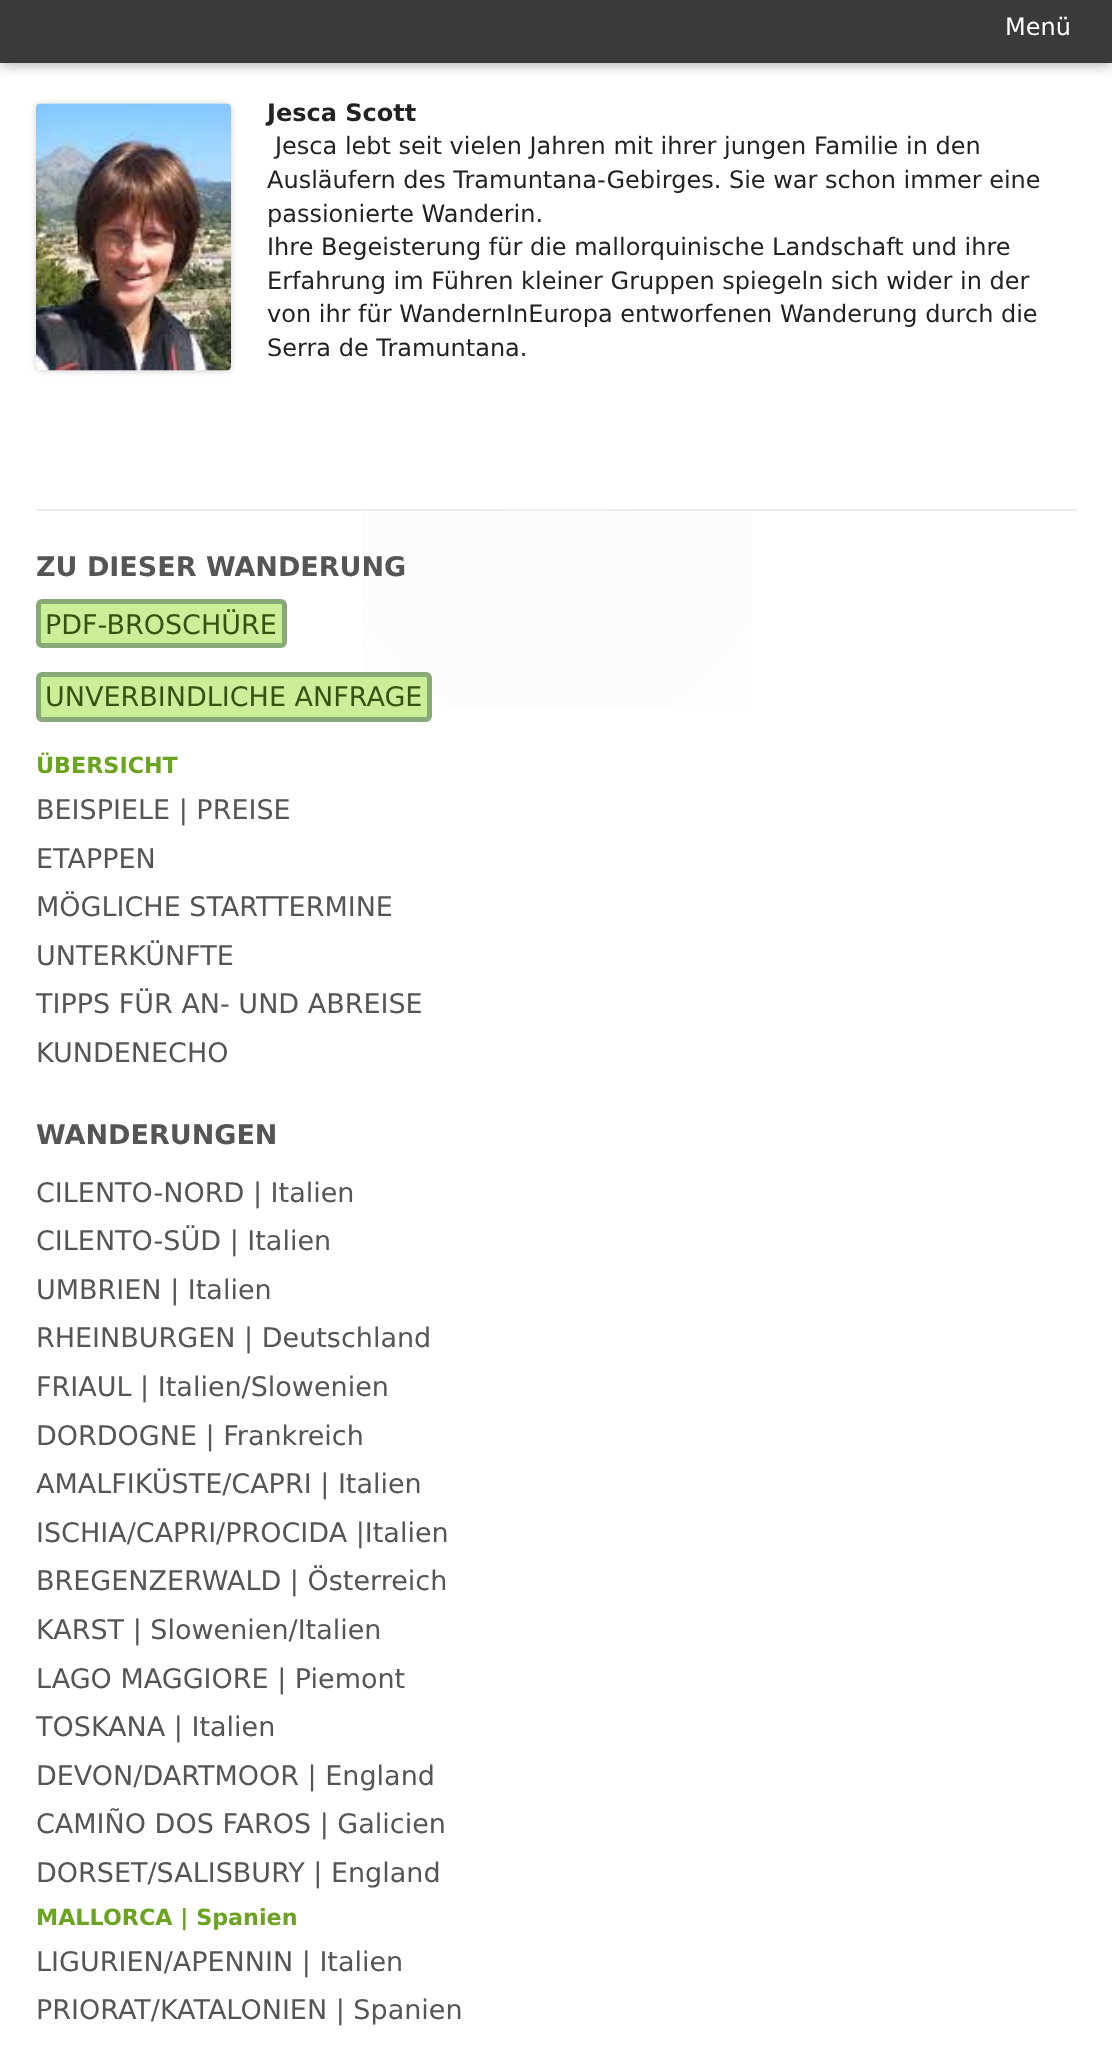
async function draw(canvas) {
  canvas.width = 1112;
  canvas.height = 2072;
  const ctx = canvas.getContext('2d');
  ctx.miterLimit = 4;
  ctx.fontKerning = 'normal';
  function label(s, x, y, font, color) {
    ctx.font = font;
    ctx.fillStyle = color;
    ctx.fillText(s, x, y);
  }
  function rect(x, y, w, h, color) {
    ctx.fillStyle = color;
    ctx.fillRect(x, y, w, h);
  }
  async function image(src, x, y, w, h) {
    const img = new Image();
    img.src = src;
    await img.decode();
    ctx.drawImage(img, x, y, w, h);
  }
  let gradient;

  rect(0, 0, 1112, 2072, '#fff');
  ctx.fillStyle = '#00000066';
  ctx.filter = 'blur(7.5px)';
  ctx.beginPath();
  ctx.rect(0, 0, 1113, 63);
  ctx.fill();
  ctx.filter = 'none';
  rect(0, 0, 1112, 63, '#3a3a3a');
  label('Menü', 1005, 35, '24px DejaVu Sans', '#fff');
  ctx.fillStyle = '#00000033';
  ctx.filter = 'blur(3px)';
  ctx.beginPath();
  ctx.roundRect(36, 104, 195, 267, 5);
  ctx.fill();
  ctx.filter = 'none';
  await image('assets/img1.png', 36, 103, 195, 268);
  label('Jesca Scott', 267, 121, 'bold 24px DejaVu Sans', '#222');
  label('Jesca lebt seit vielen Jahren mit ihrer jungen Familie in den', 275, 154, '24px DejaVu Sans', '#222');
  label('Ausläufern des Tramuntana-Gebirges. Sie war schon immer eine', 267, 188, '24px DejaVu Sans', '#222');
  label('passionierte Wanderin.', 267, 222, '24px DejaVu Sans', '#222');
  label('Ihre Begeisterung für die mallorquinische Landschaft und ihre', 267, 255, '24px DejaVu Sans', '#222');
  label('Erfahrung im Führen kleiner Gruppen spiegeln sich wider in der', 267, 289, '24px DejaVu Sans', '#222');
  label('von ihr für WandernInEuropa entworfenen Wanderung durch die', 267, 322, '24px DejaVu Sans', '#222');
  label('Serra de Tramuntana.', 267, 356, '24px DejaVu Sans', '#222');
  gradient = ctx.createRadialGradient(557, 510, 0, 557, 510, 521);
  gradient.addColorStop(0, '#fbfbfb');
  gradient.addColorStop(1, '#fff');
  ctx.fillStyle = gradient;
  ctx.fillRect(362, 511, 390, 195);
  rect(36, 509, 1041, 2, '#ededed');
  label('ZU DIESER WANDERUNG', 36, 576, 'bold 27px DejaVu Sans', '#555');
  ctx.fillStyle = '#ce9';
  ctx.beginPath();
  ctx.roundRect(38.5, 601.5, 246, 44, 3.5);
  ctx.fill();
  ctx.strokeStyle = '#8a7';
  ctx.lineWidth = 5;
  ctx.stroke();
  label('PDF-BROSCHÜRE', 45, 634, '27px DejaVu Sans', '#355210');
  ctx.fillStyle = '#ce9';
  ctx.beginPath();
  ctx.roundRect(38.5, 674.5, 391, 45, 3.5);
  ctx.fill();
  ctx.stroke();
  label('UNVERBINDLICHE ANFRAGE', 45, 706, '27px DejaVu Sans', '#355210');
  label('ÜBERSICHT', 36, 773, 'bold 22.25px DejaVu Sans', '#6ba420');
  label('BEISPIELE | PREISE', 36, 819, '27px DejaVu Sans', '#555');
  label('ETAPPEN', 36, 868, '27px DejaVu Sans', '#555');
  label('MÖGLICHE STARTTERMINE', 36, 916, '27px DejaVu Sans', '#555');
  label('UNTERKÜNFTE', 36, 965, '27px DejaVu Sans', '#555');
  label('TIPPS FÜR AN- UND ABREISE', 36, 1013, '27px DejaVu Sans', '#555');
  label('KUNDENECHO', 36, 1062, '27px DejaVu Sans', '#555');
  label('WANDERUNGEN', 36, 1144, 'bold 27px DejaVu Sans', '#555');
  label('CILENTO-NORD | Italien', 36, 1202, '27px DejaVu Sans', '#555');
  label('CILENTO-SÜD | Italien', 36, 1250, '27px DejaVu Sans', '#555');
  label('UMBRIEN | Italien', 36, 1299, '27px DejaVu Sans', '#555');
  label('RHEINBURGEN | Deutschland', 36, 1347, '27px DejaVu Sans', '#555');
  label('FRIAUL | Italien/Slowenien', 36, 1396, '27px DejaVu Sans', '#555');
  label('DORDOGNE | Frankreich', 36, 1445, '27px DejaVu Sans', '#555');
  label('AMALFIKÜSTE/CAPRI | Italien', 36, 1493, '27px DejaVu Sans', '#555');
  label('ISCHIA/CAPRI/PROCIDA |Italien', 36, 1542, '27px DejaVu Sans', '#555');
  label('BREGENZERWALD | Österreich', 36, 1590, '27px DejaVu Sans', '#555');
  label('KARST | Slowenien/Italien', 36, 1639, '27px DejaVu Sans', '#555');
  label('LAGO MAGGIORE | Piemont', 36, 1688, '27px DejaVu Sans', '#555');
  label('TOSKANA | Italien', 36, 1736, '27px DejaVu Sans', '#555');
  label('DEVON/DARTMOOR | England', 36, 1785, '27px DejaVu Sans', '#555');
  label('CAMIÑO DOS FAROS | Galicien', 36, 1833, '27px DejaVu Sans', '#555');
  label('DORSET/SALISBURY | England', 36, 1882, '27px DejaVu Sans', '#555');
  label('MALLORCA | Spanien', 36, 1925, 'bold 22.25px DejaVu Sans', '#6ba420');
  label('LIGURIEN/APENNIN | Italien', 36, 1971, '27px DejaVu Sans', '#555');
  label('PRIORAT/KATALONIEN | Spanien', 36, 2019, '27px DejaVu Sans', '#555');
}

draw(document.querySelector('canvas'));
